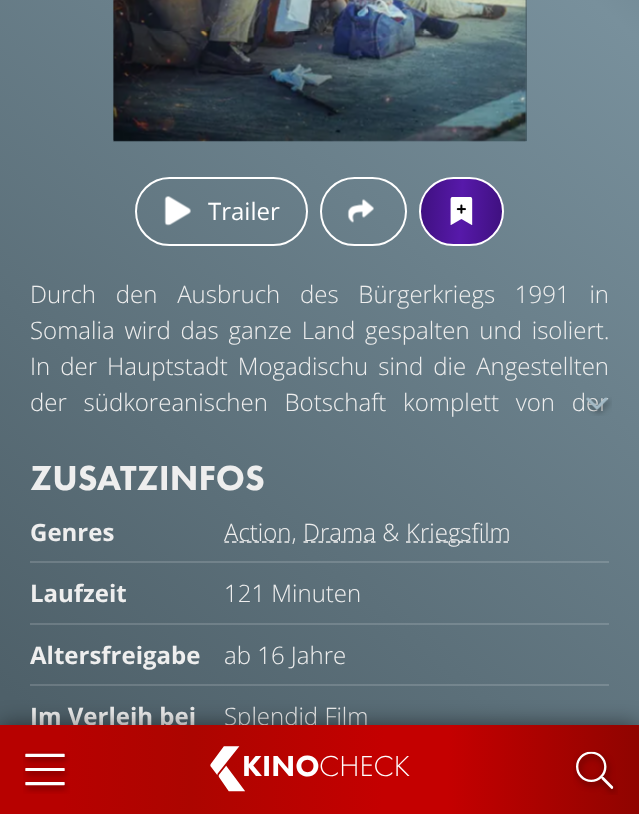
async function draw(canvas) {
  canvas.width = 639;
  canvas.height = 814;
  const ctx = canvas.getContext('2d');
  ctx.miterLimit = 4;
  ctx.fontKerning = 'normal';
  function label(s, x, y, font, color) {
    ctx.font = font;
    ctx.fillStyle = color;
    ctx.fillText(s, x, y);
  }
  function rect(x, y, w, h, color) {
    ctx.fillStyle = color;
    ctx.fillRect(x, y, w, h);
  }
  async function image(src, x, y, w, h) {
    const img = new Image();
    img.src = src;
    await img.decode();
    ctx.drawImage(img, x, y, w, h);
  }
  let gradient, path;

  rect(0, 0, 639, 814, '#fff');
  gradient = ctx.createLinearGradient(-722, 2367, 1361, -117);
  gradient.addColorStop(0.07, '#263238');
  gradient.addColorStop(0.25, '#496571');
  gradient.addColorStop(0.54, '#4e6069');
  gradient.addColorStop(0.82, '#78909c');
  gradient.addColorStop(1, '#455a64');
  ctx.fillStyle = gradient;
  ctx.fillRect(0, 0, 639, 725);
  gradient = ctx.createLinearGradient(-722, 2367, 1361, -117);
  gradient.addColorStop(0.07, '#475156');
  gradient.addColorStop(0.25, '#647c86');
  gradient.addColorStop(0.54, '#697880');
  gradient.addColorStop(0.82, '#8ca1ab');
  gradient.addColorStop(1, '#61737b');
  ctx.fillStyle = gradient;
  ctx.fillRect(30, 684, 579, 2);
  ctx.fillRect(30, 623, 579, 2);
  ctx.fillRect(30, 561, 579, 2);
  gradient = ctx.createLinearGradient(82, 115, 557, -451);
  gradient.addColorStop(0.07, '#263238');
  gradient.addColorStop(0.25, '#496571');
  gradient.addColorStop(0.54, '#4e6069');
  gradient.addColorStop(0.82, '#78909c');
  gradient.addColorStop(1, '#455a64');
  ctx.fillStyle = gradient;
  ctx.fillRect(114, 0, 413, 141);
  await image('assets/img1.png', 113, 0, 414, 142);
  ctx.beginPath();
  ctx.roundRect(136, 178, 171, 67, 33.5);
  ctx.strokeStyle = '#fff';
  ctx.lineWidth = 2;
  ctx.stroke();
  await image('assets/img2.png', 164, 196, 27, 30);
  label('Trailer', 208, 220, '24px Open Sans', '#fff');
  ctx.beginPath();
  ctx.roundRect(321, 178, 85, 67, 33.5);
  ctx.stroke();
  await image('assets/img3.png', 347, 199, 27, 24);
  ctx.save();
  ctx.beginPath();
  ctx.roundRect(419, 177, 85, 69, 34.5);
  ctx.clip();
  gradient = ctx.createLinearGradient(418, 209, 504, 214);
  gradient.addColorStop(0, '#3e107e');
  gradient.addColorStop(0.5, '#5719aa');
  gradient.addColorStop(1, '#3e107e');
  ctx.fillStyle = gradient;
  ctx.fillRect(420, 179, 83, 66);
  ctx.restore();
  ctx.beginPath();
  ctx.roundRect(420, 178, 83, 67, 33.5);
  ctx.stroke();
  await image('assets/img4.png', 450, 197, 23, 28);
  ctx.wordSpacing = '13.5px';
  label('Durch den Ausbruch des Bürgerkriegs 1991 in', 30, 303, '300 24px Open Sans', '#eee');
  ctx.wordSpacing = '3.5px';
  label('Somalia wird das ganze Land gespalten und isoliert.', 30, 339, '300 24px Open Sans', '#eee');
  ctx.wordSpacing = '3.75px';
  label('In der Hauptstadt Mogadischu sind die Angestellten', 30, 375, '300 24px Open Sans', '#eee');
  ctx.wordSpacing = '10.5px';
  label('der südkoreanischen Botschaft komplett von der', 30, 411, '300 24px Open Sans', '#eee');
  await image('assets/img5.png', 584, 397, 28, 19);
  ctx.wordSpacing = '0px';
  label('ZUSATZINFOS', 30, 490, '36px "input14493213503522"', '#eee');
  label('Genres', 30, 541, 'bold 24px Open Sans', '#eee');
  path = new Path2D('M224.5 542H292');
  ctx.strokeStyle = '#eee';
  ctx.lineWidth = 1.5;
  ctx.setLineDash([4.5, 3]);
  ctx.stroke(path);
  label('Action,', 224, 541, '300 24px Open Sans', '#eee');
  path = new Path2D('M303.5 542H376.5');
  ctx.stroke(path);
  label('Drama &', 303, 541, '300 24px Open Sans', '#eee');
  path = new Path2D('M406 542H510.5');
  ctx.stroke(path);
  label('Kriegsfilm', 406, 541, '300 24px Open Sans', '#eee');
  label('Laufzeit', 30, 602, 'bold 24px Open Sans', '#eee');
  label('121 Minuten', 224, 602, '300 24px Open Sans', '#eee');
  label('Altersfreigabe', 30, 664, 'bold 24px Open Sans', '#eee');
  label('ab 16 Jahre', 224, 664, '300 24px Open Sans', '#eee');
  label('Im Verleih bei', 30, 725, 'bold 24px Open Sans', '#eee');
  label('Splendid Film', 224, 725, '300 24px Open Sans', '#eee');
  ctx.fillStyle = '#00000080';
  ctx.filter = 'blur(11px)';
  ctx.beginPath();
  ctx.rect(0, 725, 639, 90);
  ctx.fill();
  ctx.filter = 'none';
  gradient = ctx.createLinearGradient(-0.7, 764, 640, 775);
  gradient.addColorStop(0.1, '#b70100');
  gradient.addColorStop(0.3, '#ac0500');
  gradient.addColorStop(0.6, '#c40000');
  gradient.addColorStop(0.7, '#c40000');
  gradient.addColorStop(1, '#8f0400');
  ctx.fillStyle = gradient;
  ctx.fillRect(0, 725, 639, 89);
  await image('assets/img6.png', 23, 751, 47, 43);
  label('KINO', 242, 776, '30px "input14493213503522"', '#fff');
  await image('assets/img7.png', 210, 746, 35, 46);
  label('CHECK', 319, 776, '30px "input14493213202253"', '#fff');
  await image('assets/img8.png', 573, 750, 45, 45);
}

draw(document.querySelector('canvas'));
